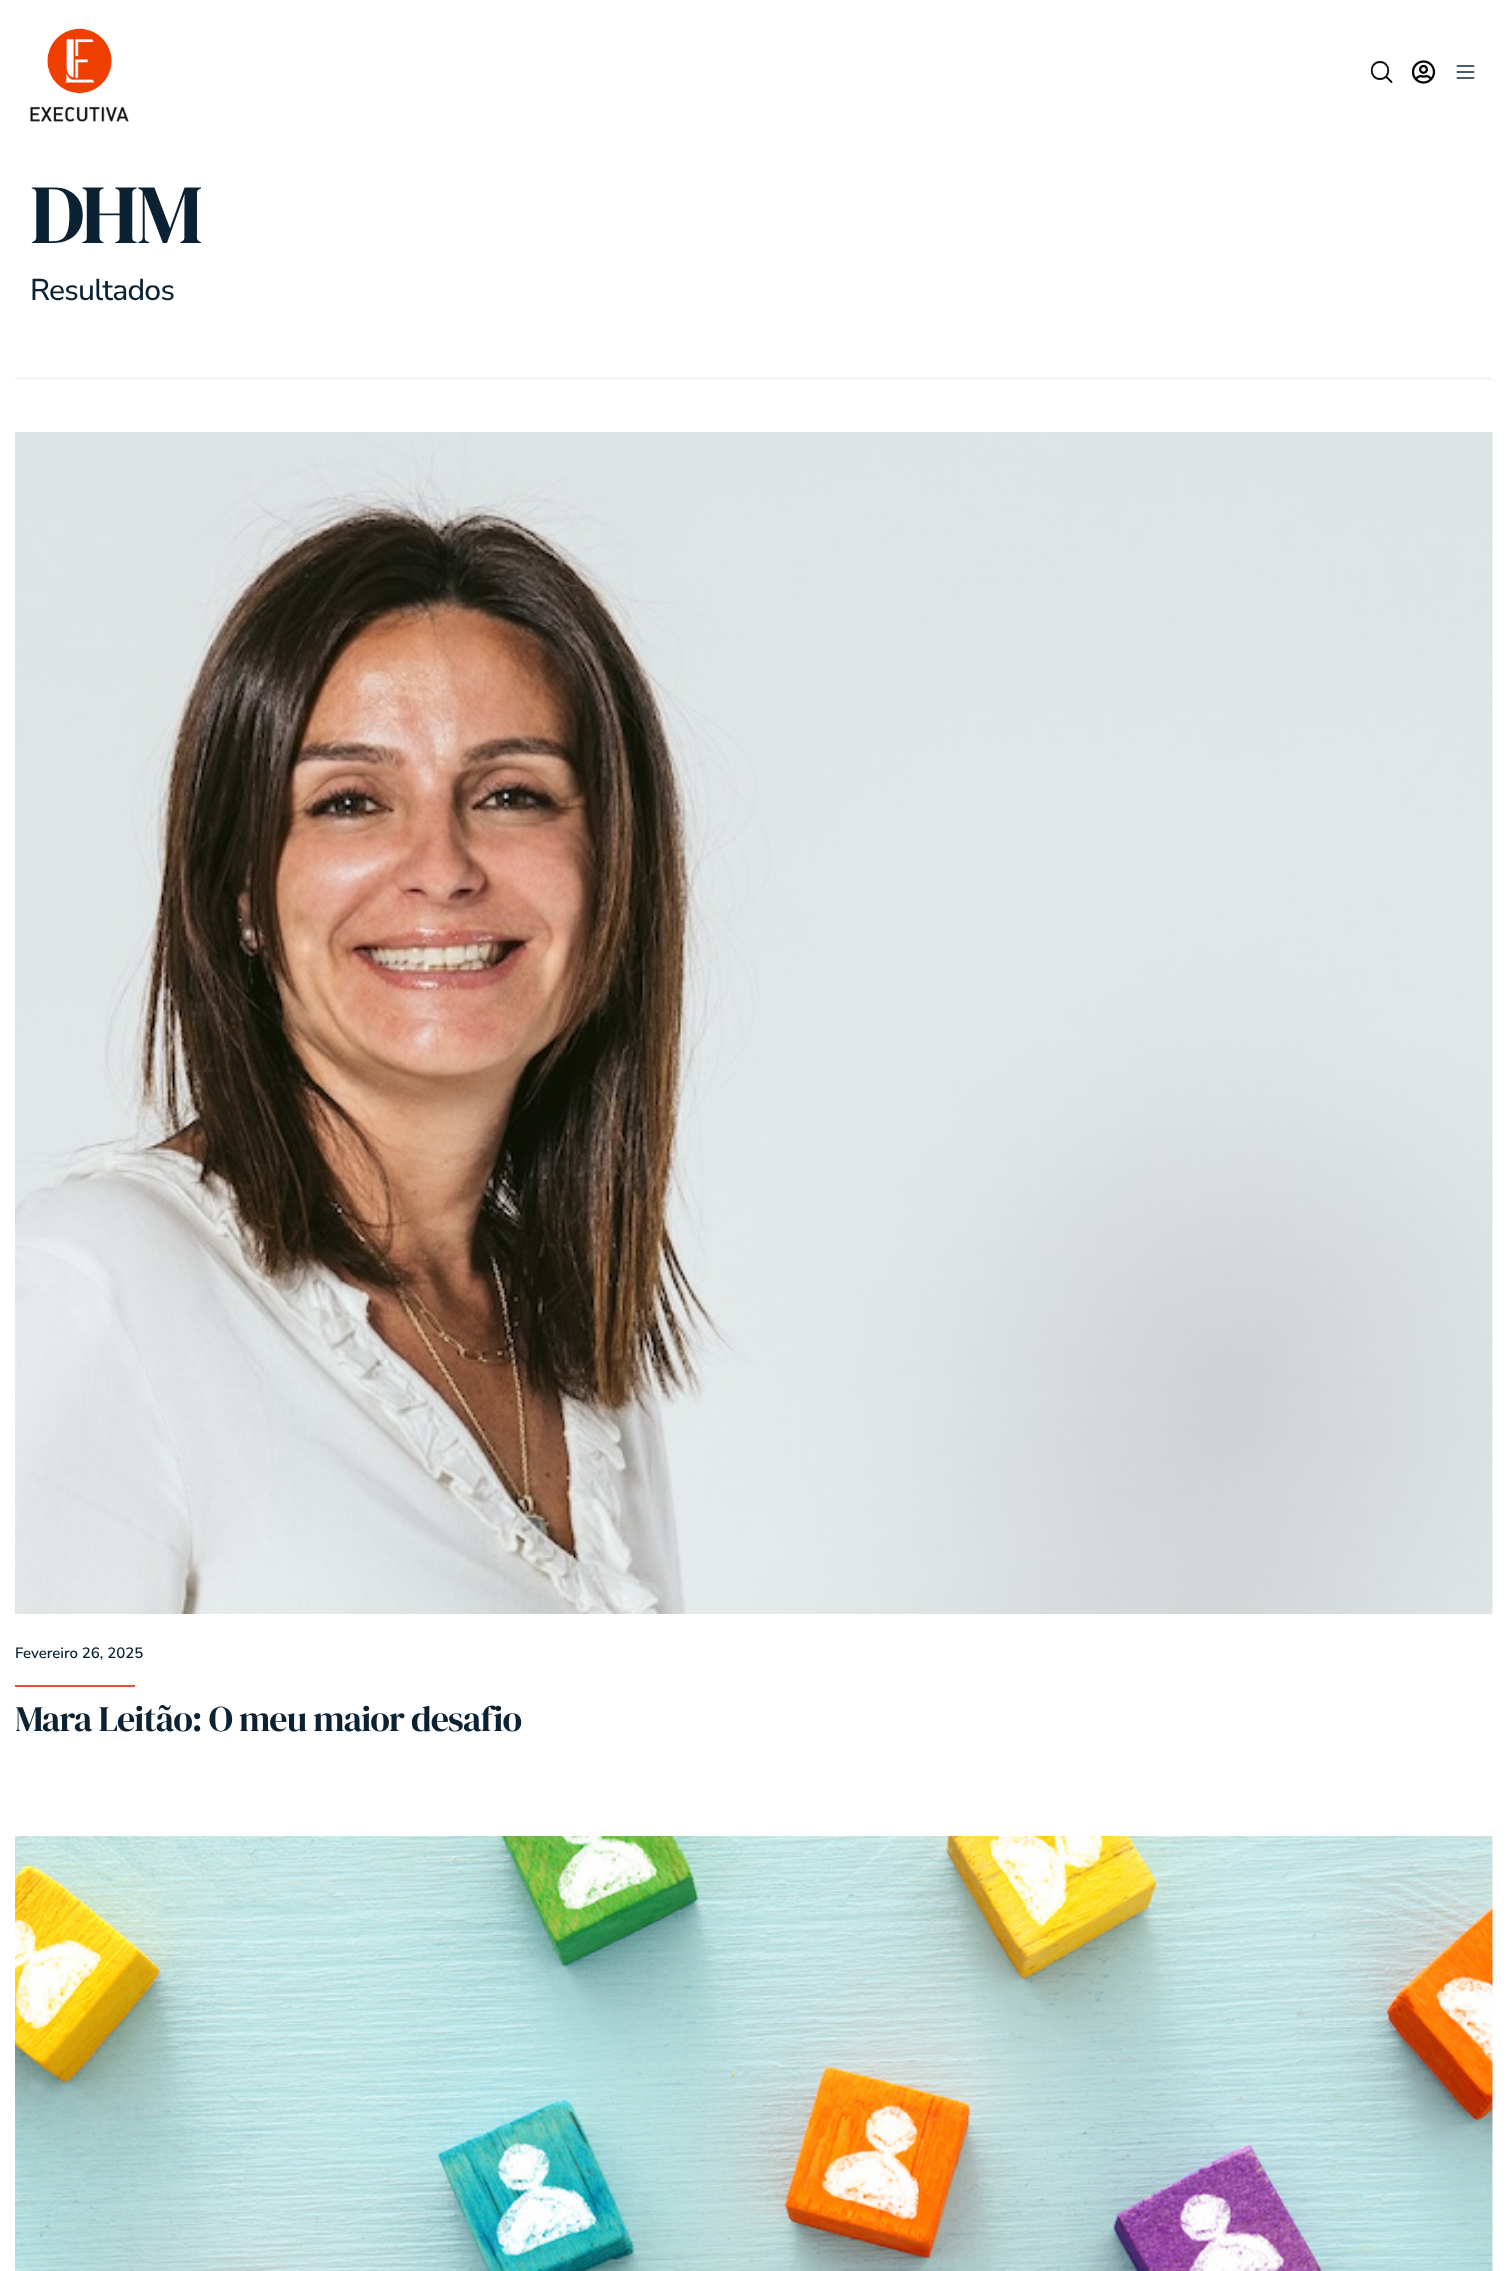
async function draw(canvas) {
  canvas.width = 1507;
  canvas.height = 2271;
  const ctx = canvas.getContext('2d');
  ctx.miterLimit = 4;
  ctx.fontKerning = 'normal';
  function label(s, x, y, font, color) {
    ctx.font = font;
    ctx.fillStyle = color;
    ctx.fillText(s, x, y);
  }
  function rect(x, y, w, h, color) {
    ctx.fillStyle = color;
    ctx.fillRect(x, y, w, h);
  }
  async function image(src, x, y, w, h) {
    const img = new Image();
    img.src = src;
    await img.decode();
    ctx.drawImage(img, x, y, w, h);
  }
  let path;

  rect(0, 0, 1507, 2271, '#fff');
  await image('assets/img1.png', 30, 28, 99, 94);
  path = new Path2D('M1380 79C1391 79 1391 62 1380 62C1369 62 1369 79 1380 79ZM1391.5 82L1386.5 77');
  ctx.strokeStyle = '#0a0a0a';
  ctx.lineWidth = 1.8;
  ctx.lineCap = 'round';
  ctx.lineJoin = 'round';
  ctx.stroke(path);
  await image('assets/img2.png', 1412, 60, 24, 24);
  await image('assets/img3.png', 1456, 65, 19, 14);
  ctx.letterSpacing = '-2px';
  label('DHM', 30, 243, '84px DM Serif Display', '#0c2233');
  ctx.letterSpacing = '-0.75px';
  label('Resultados', 30, 300, '500 30px Nunito Sans', '#0c2233');
  rect(15, 377, 1478, 3, '#f6f6f6');
  await image('assets/img4.png', 15, 432, 1478, 1182);
  ctx.letterSpacing = '0px';
  label('Fevereiro 26, 2025', 15, 1658, '600 15px Nunito Sans', '#0c2233');
  rect(15, 1685, 120, 2, '#e85036');
  ctx.letterSpacing = '-0.9px';
  label('Mara Leitão: O meu maior desafio', 15, 1731, '36px DM Serif Display', '#0c2233');
  await image('assets/img5.png', 15, 1836, 1478, 435);
}

draw(document.querySelector('canvas'));
